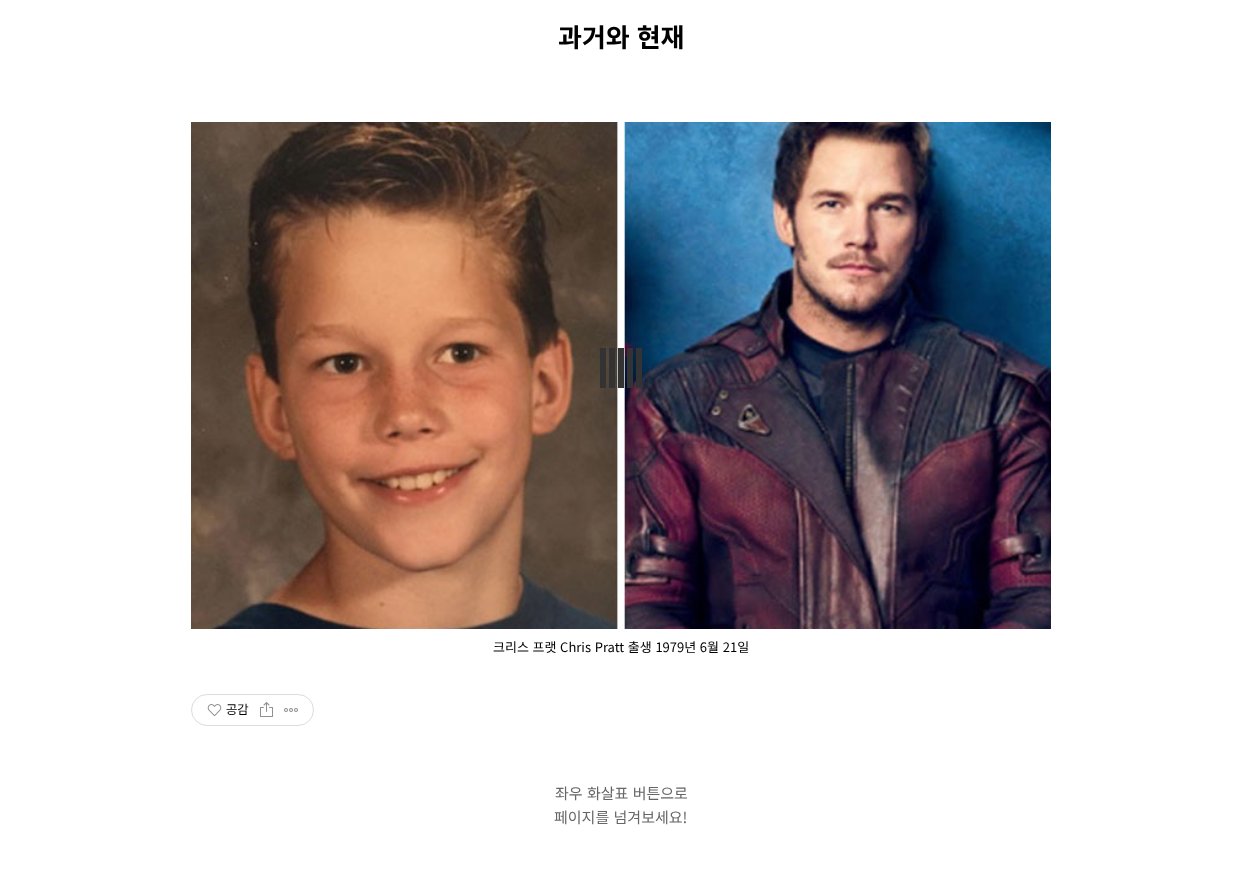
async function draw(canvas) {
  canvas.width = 1242;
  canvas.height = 869;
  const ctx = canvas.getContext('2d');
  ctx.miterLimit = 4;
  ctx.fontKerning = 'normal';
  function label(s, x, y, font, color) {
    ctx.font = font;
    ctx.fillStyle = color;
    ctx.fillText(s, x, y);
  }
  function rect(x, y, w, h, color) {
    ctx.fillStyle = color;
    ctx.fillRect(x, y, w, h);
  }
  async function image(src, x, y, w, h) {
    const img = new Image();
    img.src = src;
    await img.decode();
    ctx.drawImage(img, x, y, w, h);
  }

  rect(0, 0, 1242, 869, '#fff');
  ctx.wordSpacing = '1px';
  label('과거와 현재', 558, 47, 'bold 26px Noto Sans KR', '#000');
  await image('assets/img1.png', 191, 122, 860, 507);
  ctx.wordSpacing = '0.75px';
  label('크리스 프랫 Chris Pratt 출생 1979년 6월 21일', 493, 652, '13px Noto Sans KR', '#000');
  ctx.beginPath();
  ctx.roundRect(191.5, 694.5, 122, 31, 15.5);
  ctx.strokeStyle = '#dcdcdc';
  ctx.stroke();
  await image('assets/img2.png', 207, 704, 15, 12);
  ctx.wordSpacing = '0px';
  label('공감', 226, 714, '13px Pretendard', '#000');
  await image('assets/img3.png', 260, 702, 13, 15);
  await image('assets/img4.png', 284, 708, 14, 4);
  ctx.wordSpacing = '1px';
  label('좌우 화살표 버튼으로', 555, 799, '15px Noto Sans KR', '#666');
  label('페이지를 넘겨보세요!', 554, 823, '15px Noto Sans KR', '#666');
  rect(600, 348, 6, 40, '#333');
  rect(609, 348, 6, 40, '#333');
  rect(618, 348, 6, 40, '#333');
  rect(627, 348, 6, 40, '#333');
  rect(636, 348, 6, 40, '#333');
}

draw(document.querySelector('canvas'));
